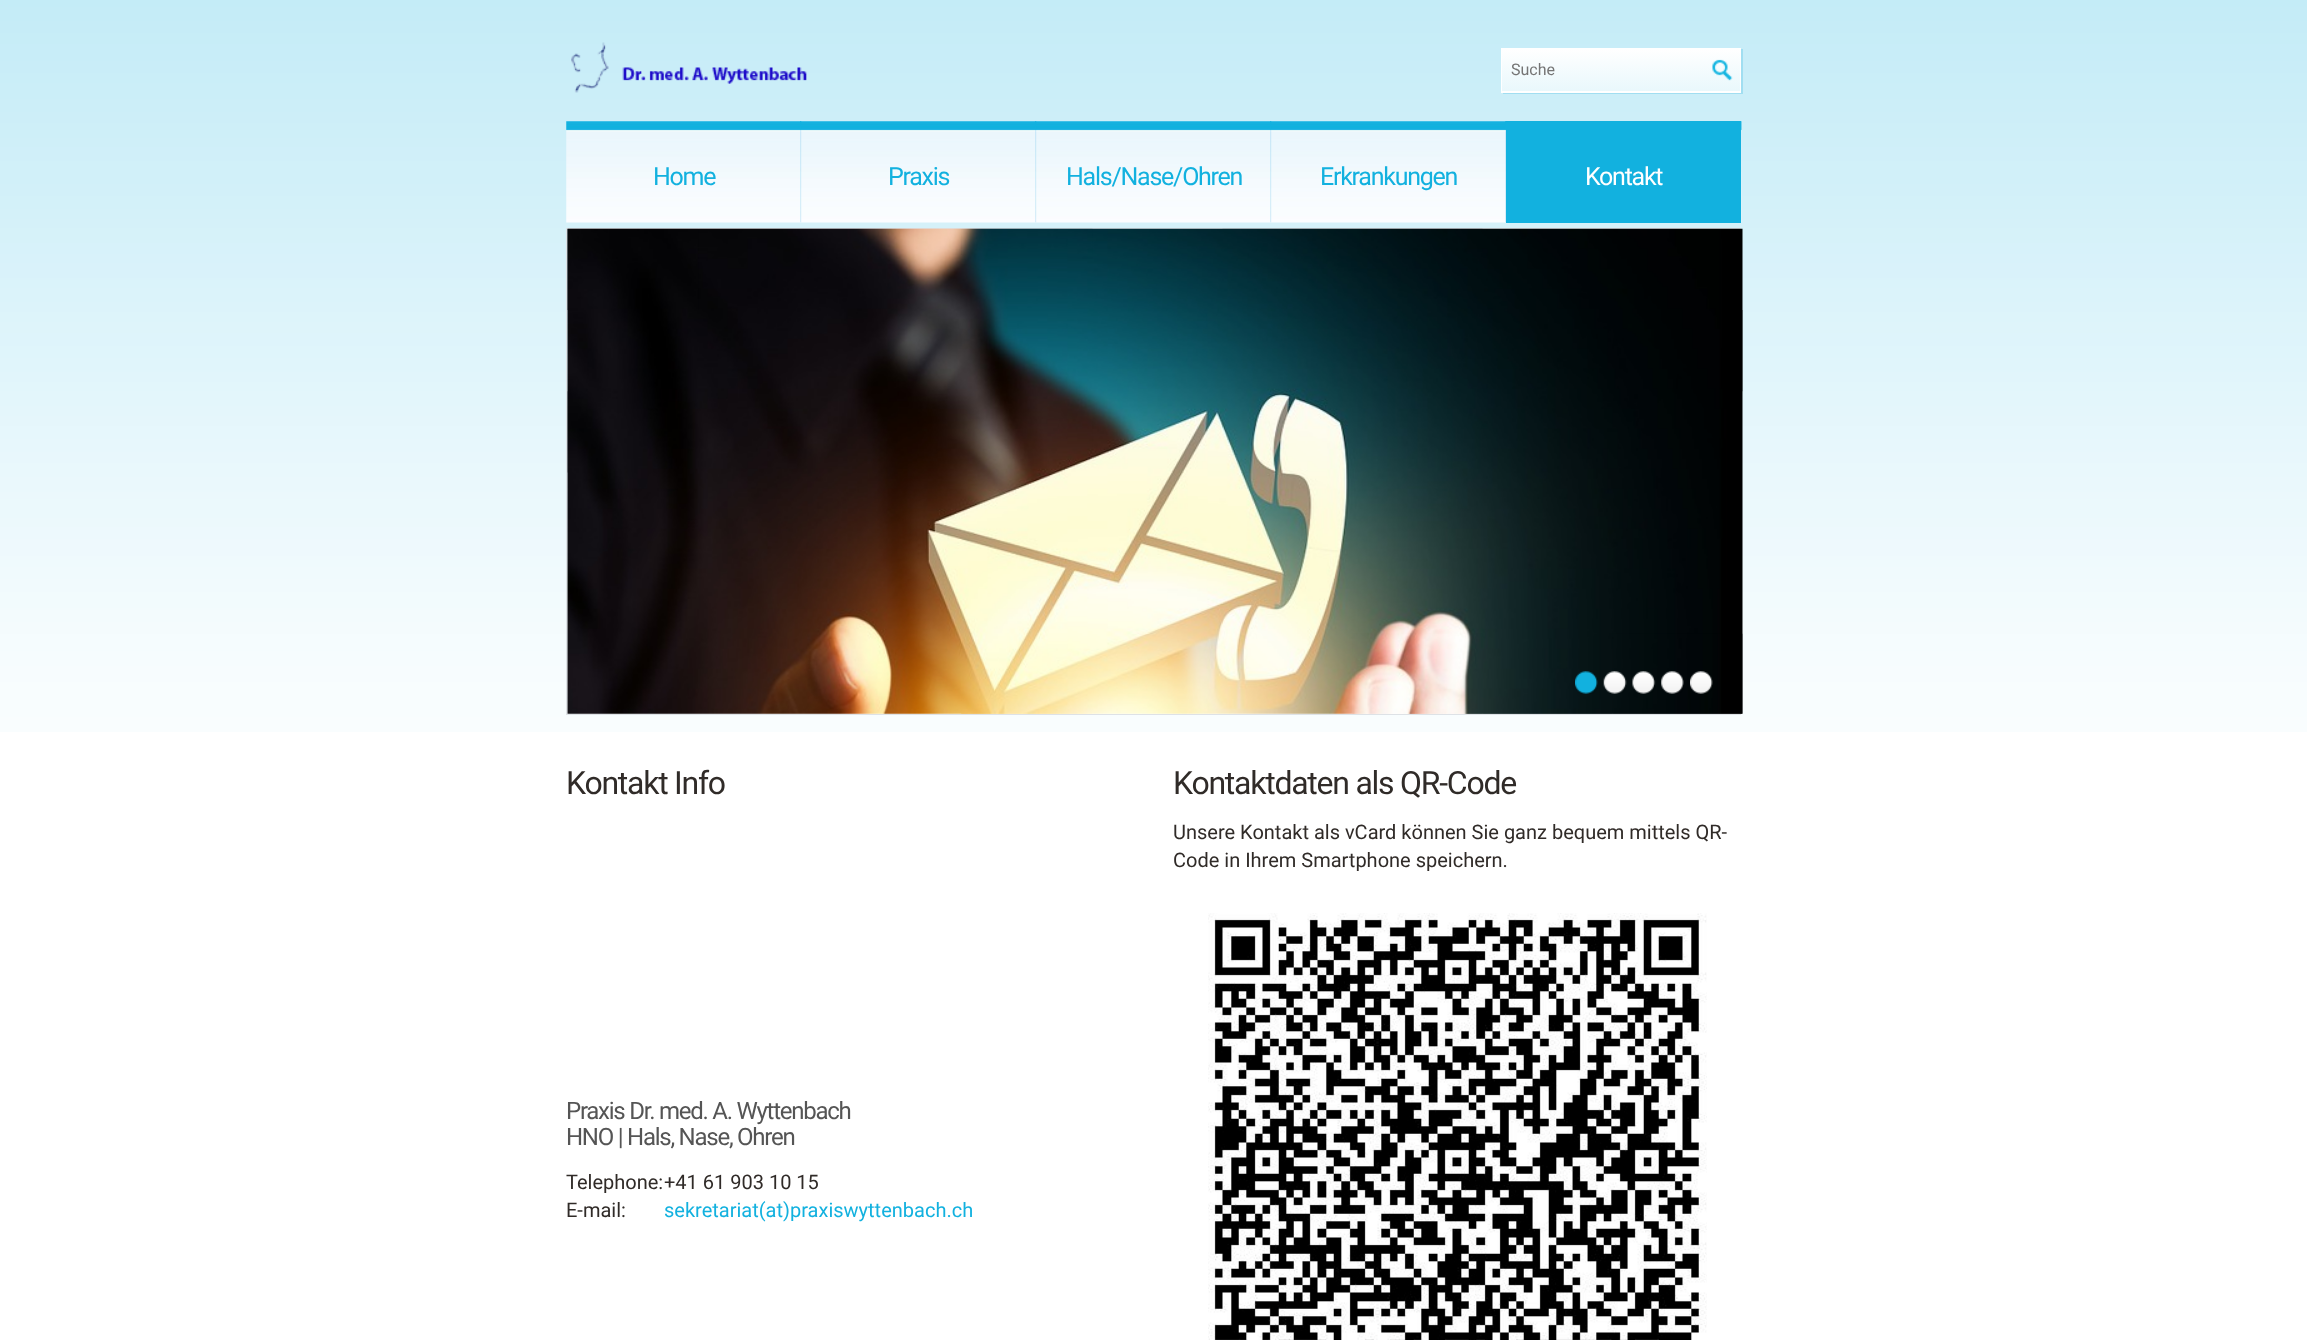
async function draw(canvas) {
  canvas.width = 2307;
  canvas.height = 1340;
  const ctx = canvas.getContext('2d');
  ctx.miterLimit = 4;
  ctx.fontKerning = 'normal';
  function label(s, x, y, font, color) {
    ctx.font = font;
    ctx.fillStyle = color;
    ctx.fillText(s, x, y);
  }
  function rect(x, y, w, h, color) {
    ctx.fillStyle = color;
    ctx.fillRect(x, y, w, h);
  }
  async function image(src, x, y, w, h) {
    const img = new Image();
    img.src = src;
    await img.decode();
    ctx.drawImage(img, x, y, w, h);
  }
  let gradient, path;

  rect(0, 0, 2307, 1340, '#fff');
  await image('assets/img1.png', 0, 0, 2307, 732);
  await image('assets/img2.png', 571, 42, 236, 51);
  ctx.fillStyle = '#a1def1';
  path = new Path2D('M1503 92V94H1743V49H1741V92Z');
  ctx.fill(path);
  rect(1502, 91, 238, 1, '#fff');
  gradient = ctx.createLinearGradient(1621, 49, 1621, 91);
  gradient.addColorStop(0, '#fff');
  gradient.addColorStop(1, '#e9f8fc');
  ctx.fillStyle = gradient;
  ctx.fillRect(1502, 49, 238, 42);
  ctx.strokeStyle = '#fff';
  ctx.strokeRect(1501.5, 48.5, 239, 44);
  label('Suche', 1511, 75, '16px Roboto', '#757575');
  await image('assets/img3.png', 1712, 59, 21, 22);
  await image('assets/img4.png', 566, 121, 1176, 102);
  await image('assets/img5.png', 800, 121, 2, 102);
  ctx.letterSpacing = '-1.25px';
  label('Home', 653, 185, '25px Roboto', '#12b1df');
  await image('assets/img5.png', 1035, 121, 2, 102);
  label('Praxis', 888, 185, '25px Roboto', '#12b1df');
  await image('assets/img5.png', 1270, 121, 2, 102);
  label('Hals/Nase/Ohren', 1066, 185, '25px Roboto', '#12b1df');
  await image('assets/img6.png', 1505, 121, 1, 102);
  label('Erkrankungen', 1320, 185, '25px Roboto', '#12b1df');
  await image('assets/img7.png', 1741, 121, 1, 102);
  rect(1506, 121, 235, 102, '#12b1df');
  label('Kontakt', 1585, 185, '25px Roboto', '#fff');
  ctx.strokeStyle = '#dee2e6';
  ctx.strokeRect(566.5, 228.5, 1174, 486);
  await image('assets/img8.png', 567, 228, 1176, 486);
  await image('assets/img9.png', 567, 228, 132, 82);
  await image('assets/img10.png', 699, 228, 131, 1);
  await image('assets/img11.png', 830, 228, 131, 1);
  await image('assets/img12.png', 961, 228, 132, 27);
  await image('assets/img13.png', 1222, 228, 131, 1);
  await image('assets/img14.png', 1352, 228, 131, 1);
  await image('assets/img15.png', 1742, 310, 1, 82);
  await image('assets/img16.png', 567, 391, 1, 82);
  await image('assets/img17.png', 1092, 420, 131, 53);
  await image('assets/img18.png', 1222, 420, 65, 53);
  await image('assets/img19.png', 1092, 553, 131, 81);
  await image('assets/img20.png', 1378, 617, 92, 17);
  await image('assets/img21.png', 961, 633, 131, 81);
  await image('assets/img22.png', 1352, 633, 131, 81);
  await image('assets/img23.png', 1482, 713, 131, 1);
  await image('assets/img24.png', 1612, 633, 131, 81);
  await image('assets/img25.png', 1575, 671, 23, 23);
  await image('assets/img26.png', 1603, 671, 24, 23);
  await image('assets/img27.png', 1632, 671, 24, 23);
  await image('assets/img28.png', 1661, 671, 23, 23);
  await image('assets/img29.png', 1690, 671, 23, 23);
  label('Kontakt Info', 566, 794, '32px Roboto', '#302b28');
  label('Praxis Dr. med. A. Wyttenbach', 566, 1119, '24px Roboto', '#555');
  label('HNO | Hals, Nase, Ohren', 566, 1145, '24px Roboto', '#555');
  ctx.letterSpacing = '0px';
  label('Telephone:', 566, 1189, '20px Roboto', '#302b28');
  label('E-mail:', 566, 1217, '20px Roboto', '#302b28');
  label('+41 61 903 10 15', 664, 1189, '20px Roboto', '#302b28');
  label('sekretariat(at)praxiswyttenbach.ch', 664, 1217, '20px Roboto', '#12b1df');
  ctx.letterSpacing = '-1.25px';
  label('Kontaktdaten als QR-Code', 1173, 794, '32px Roboto', '#302b28');
  ctx.letterSpacing = '0px';
  label('Unsere Kontakt als vCard können Sie ganz bequem mittels QR-', 1173, 839, '20px Roboto', '#302b28');
  label('Code in Ihrem Smartphone speichern.', 1173, 867, '20px Roboto', '#302b28');
  await image('assets/img30.png', 1208, 913, 499, 427);
}

draw(document.querySelector('canvas'));
